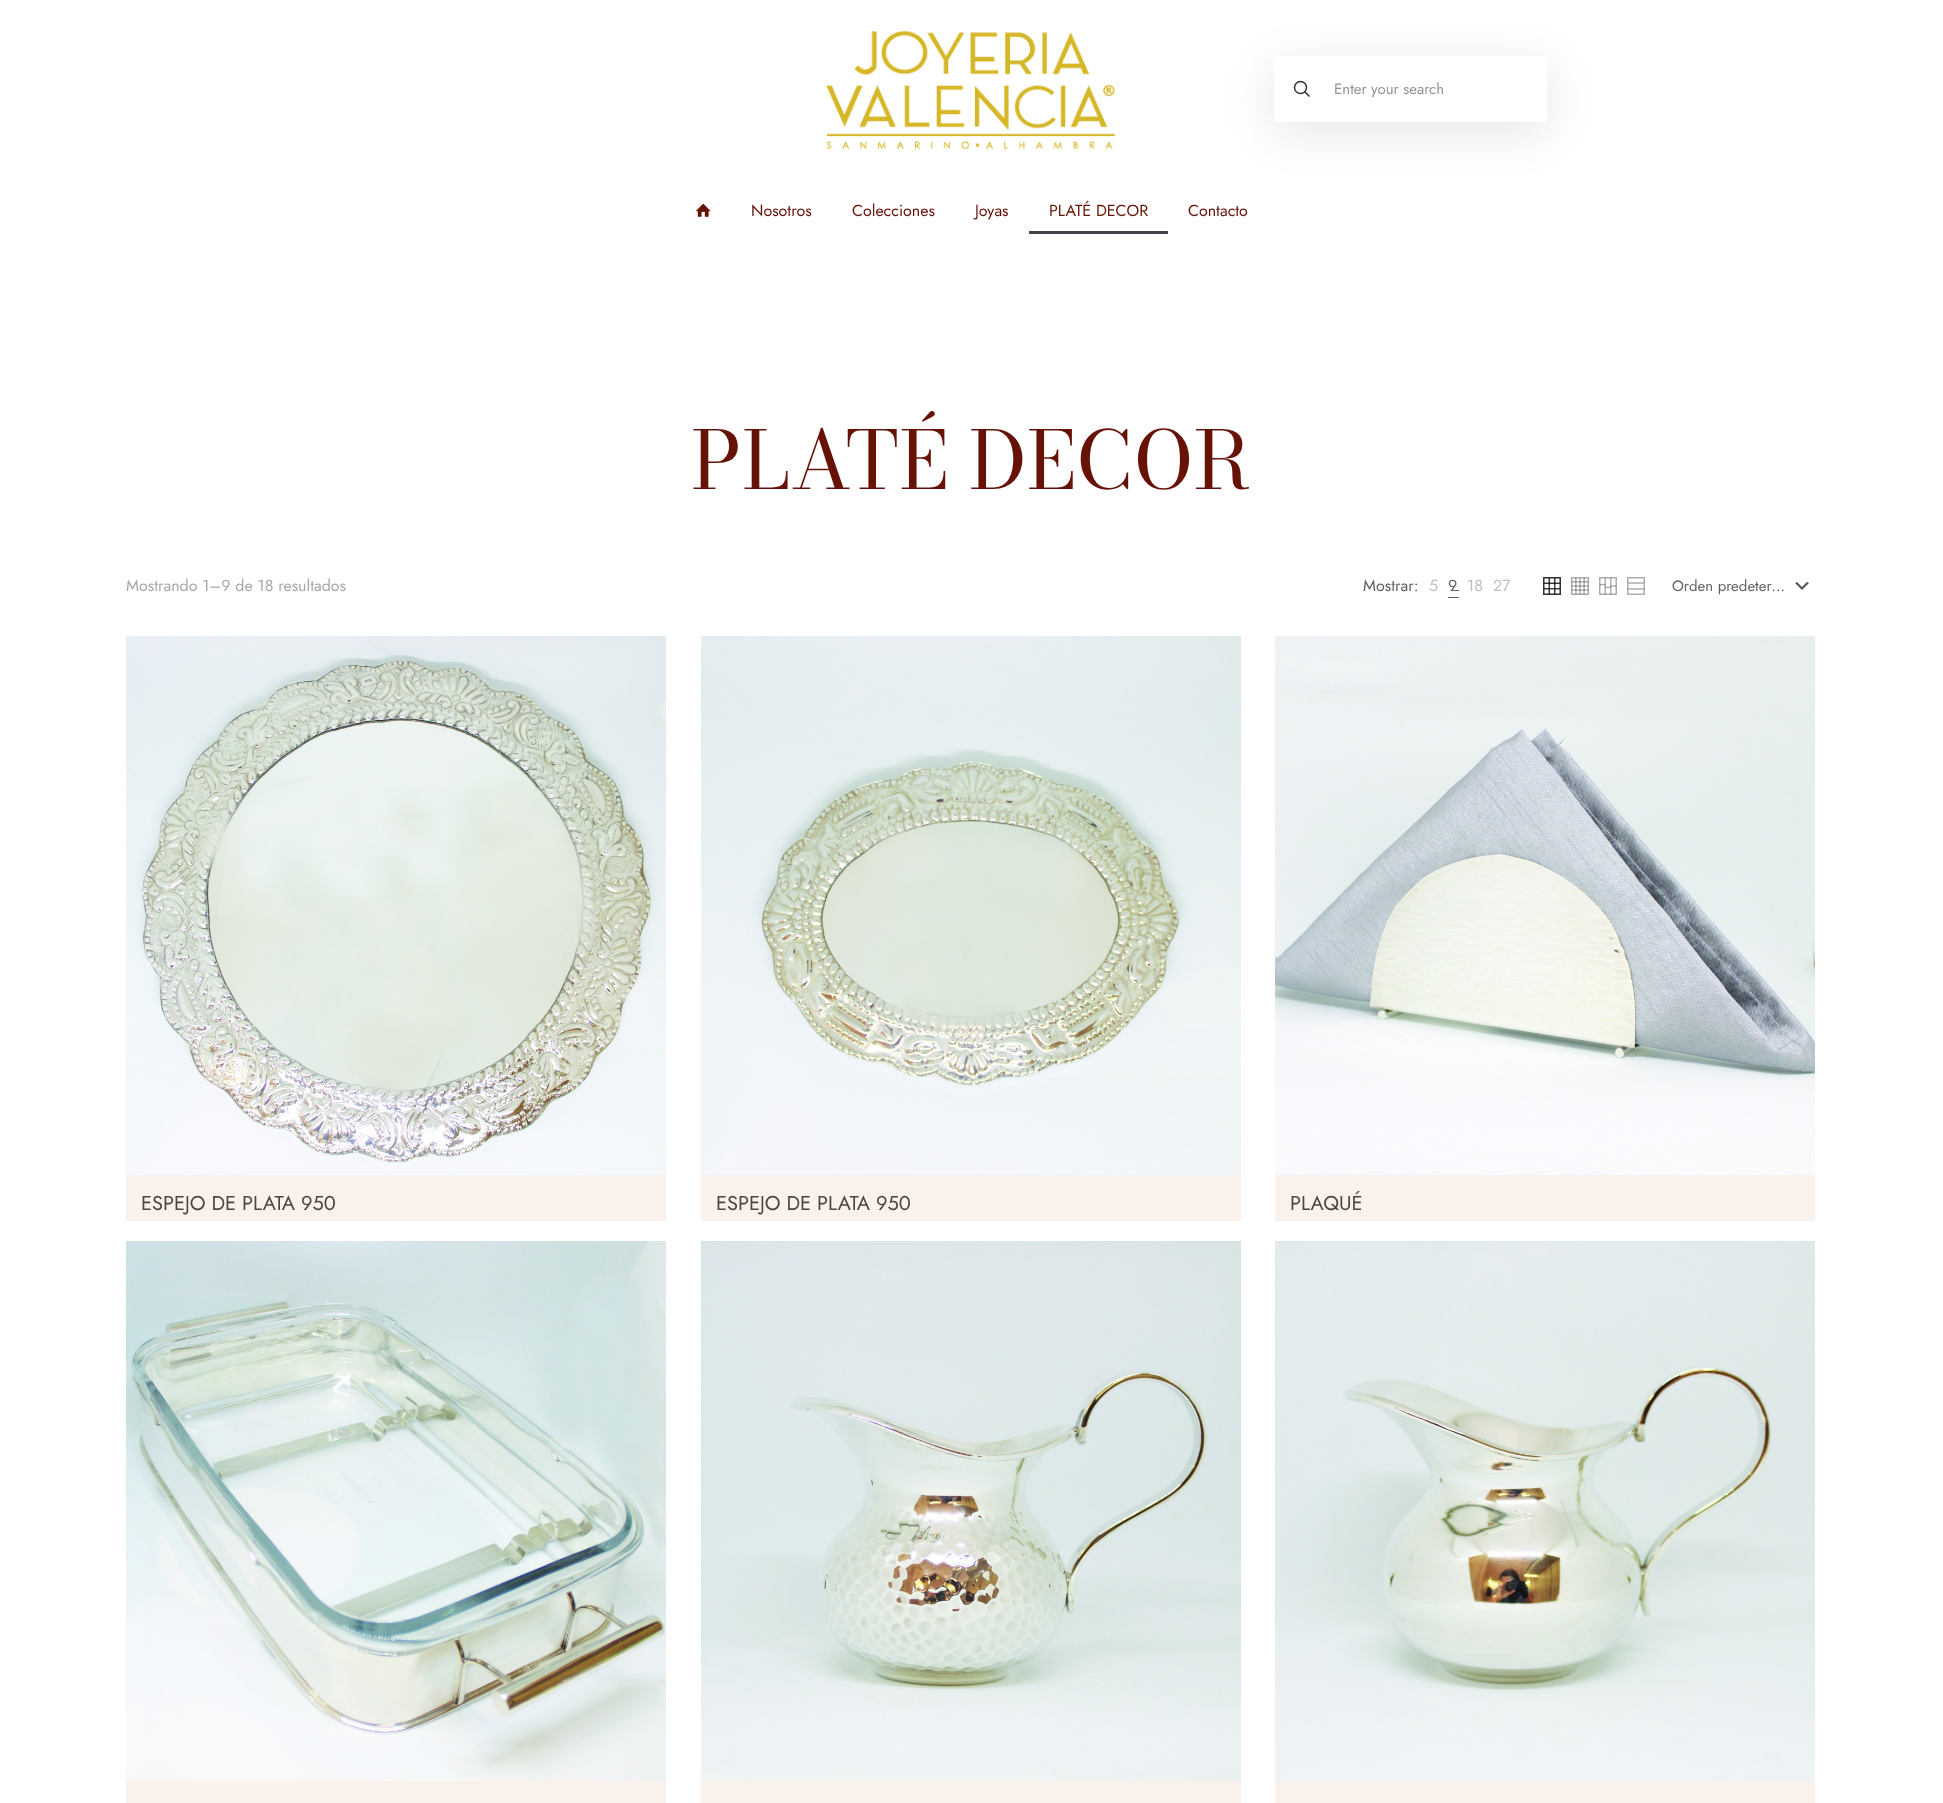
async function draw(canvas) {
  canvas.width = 1943;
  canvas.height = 1803;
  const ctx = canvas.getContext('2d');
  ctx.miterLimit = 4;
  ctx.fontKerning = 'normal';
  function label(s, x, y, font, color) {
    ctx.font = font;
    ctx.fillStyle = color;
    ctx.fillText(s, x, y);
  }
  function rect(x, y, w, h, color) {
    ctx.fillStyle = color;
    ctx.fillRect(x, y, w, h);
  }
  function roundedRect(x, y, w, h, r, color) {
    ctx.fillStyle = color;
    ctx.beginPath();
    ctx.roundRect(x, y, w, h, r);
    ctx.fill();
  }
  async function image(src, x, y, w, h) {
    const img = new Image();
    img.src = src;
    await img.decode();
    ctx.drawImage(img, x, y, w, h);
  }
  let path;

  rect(0, 0, 1943, 1803, '#fff');
  await image('assets/img1.png', 826, 30, 290, 120);
  ctx.fillStyle = '#0107271a';
  ctx.filter = 'blur(23px)';
  ctx.beginPath();
  ctx.roundRect(1274, 66, 273, 66, 4);
  ctx.fill();
  ctx.filter = 'none';
  roundedRect(1274, 56, 273, 66, 4, '#fff');
  ctx.beginPath();
  ctx.arc(1300.5, 87.5, 6, 0, 2 * Math.PI);
  ctx.strokeStyle = '#333';
  ctx.lineWidth = 1.5;
  ctx.stroke();
  path = new Path2D('M1304.5 91.5L1309.5 96.5');
  ctx.stroke(path);
  label('Enter your search', 1334, 94, '15px Jost', '#929292');
  await image('assets/img2.png', 696, 204, 15, 13);
  label('Nosotros', 751, 216, '16px Jost', '#661207');
  label('Colecciones', 852, 216, '16px Jost', '#661207');
  label('Joyas', 975, 216, '16px Jost', '#661207');
  label('PLATÉ DECOR', 1049, 216, '16px Jost', '#661207');
  rect(1029, 231, 139, 3, '#3f444b');
  label('Contacto', 1188, 216, '16px Jost', '#661207');
  label('PLATÉ DECOR', 691, 489, '80px Bodoni Moda', '#661207');
  label('Mostrando 1–9 de 18 resultados', 126, 591, '16px Jost', '#a8a8a8');
  label('Mostrar:', 1363, 591, '16px Jost', '#626262');
  label('5', 1429, 591, '16px Jost', '#c0c0c0');
  rect(1451, 590, 8, 1, '#626262');
  label('9', 1448, 591, '16px Jost', '#626262');
  rect(1448, 597, 11, 1, '#626262');
  label('18', 1467, 591, '16px Jost', '#c0c0c0');
  label('27', 1493, 591, '16px Jost', '#c0c0c0');
  await image('assets/img3.png', 1543, 577, 18, 18);
  await image('assets/img4.png', 1571, 577, 18, 18);
  await image('assets/img5.png', 1599, 577, 18, 18);
  ctx.strokeStyle = '#adadad';
  ctx.strokeRect(1627.75, 577.75, 16.5, 16.5);
  path = new Path2D('M1628 583H1644M1628 589H1644');
  ctx.strokeStyle = '#999999cc';
  ctx.lineWidth = 1.4;
  ctx.stroke(path);
  await image('assets/img6.png', 1795, 582, 14, 8);
  label('Orden predeter…', 1672, 591, '15px Jost', '#626262');
  rect(126, 1175, 540, 46, '#f9f2ec');
  await image('assets/img7.png', 126, 636, 540, 539);
  label('ESPEJO DE PLATA 950', 141, 1210, '20px Jost', '#4e4540');
  rect(701, 1175, 540, 46, '#f9f2ec');
  await image('assets/img8.png', 701, 636, 540, 539);
  label('ESPEJO DE PLATA 950', 716, 1210, '20px Jost', '#4e4540');
  rect(1275, 1175, 540, 46, '#f9f2ec');
  await image('assets/img9.png', 1275, 636, 540, 539);
  label('PLAQUÉ', 1290, 1210, '20px Jost', '#4e4540');
  rect(126, 1781, 540, 22, '#f9f2ec');
  await image('assets/img10.png', 126, 1241, 540, 540);
  rect(701, 1781, 540, 22, '#f9f2ec');
  await image('assets/img11.png', 701, 1241, 540, 540);
  rect(1275, 1781, 540, 22, '#f9f2ec');
  await image('assets/img12.png', 1275, 1241, 540, 540);
}

draw(document.querySelector('canvas'));
